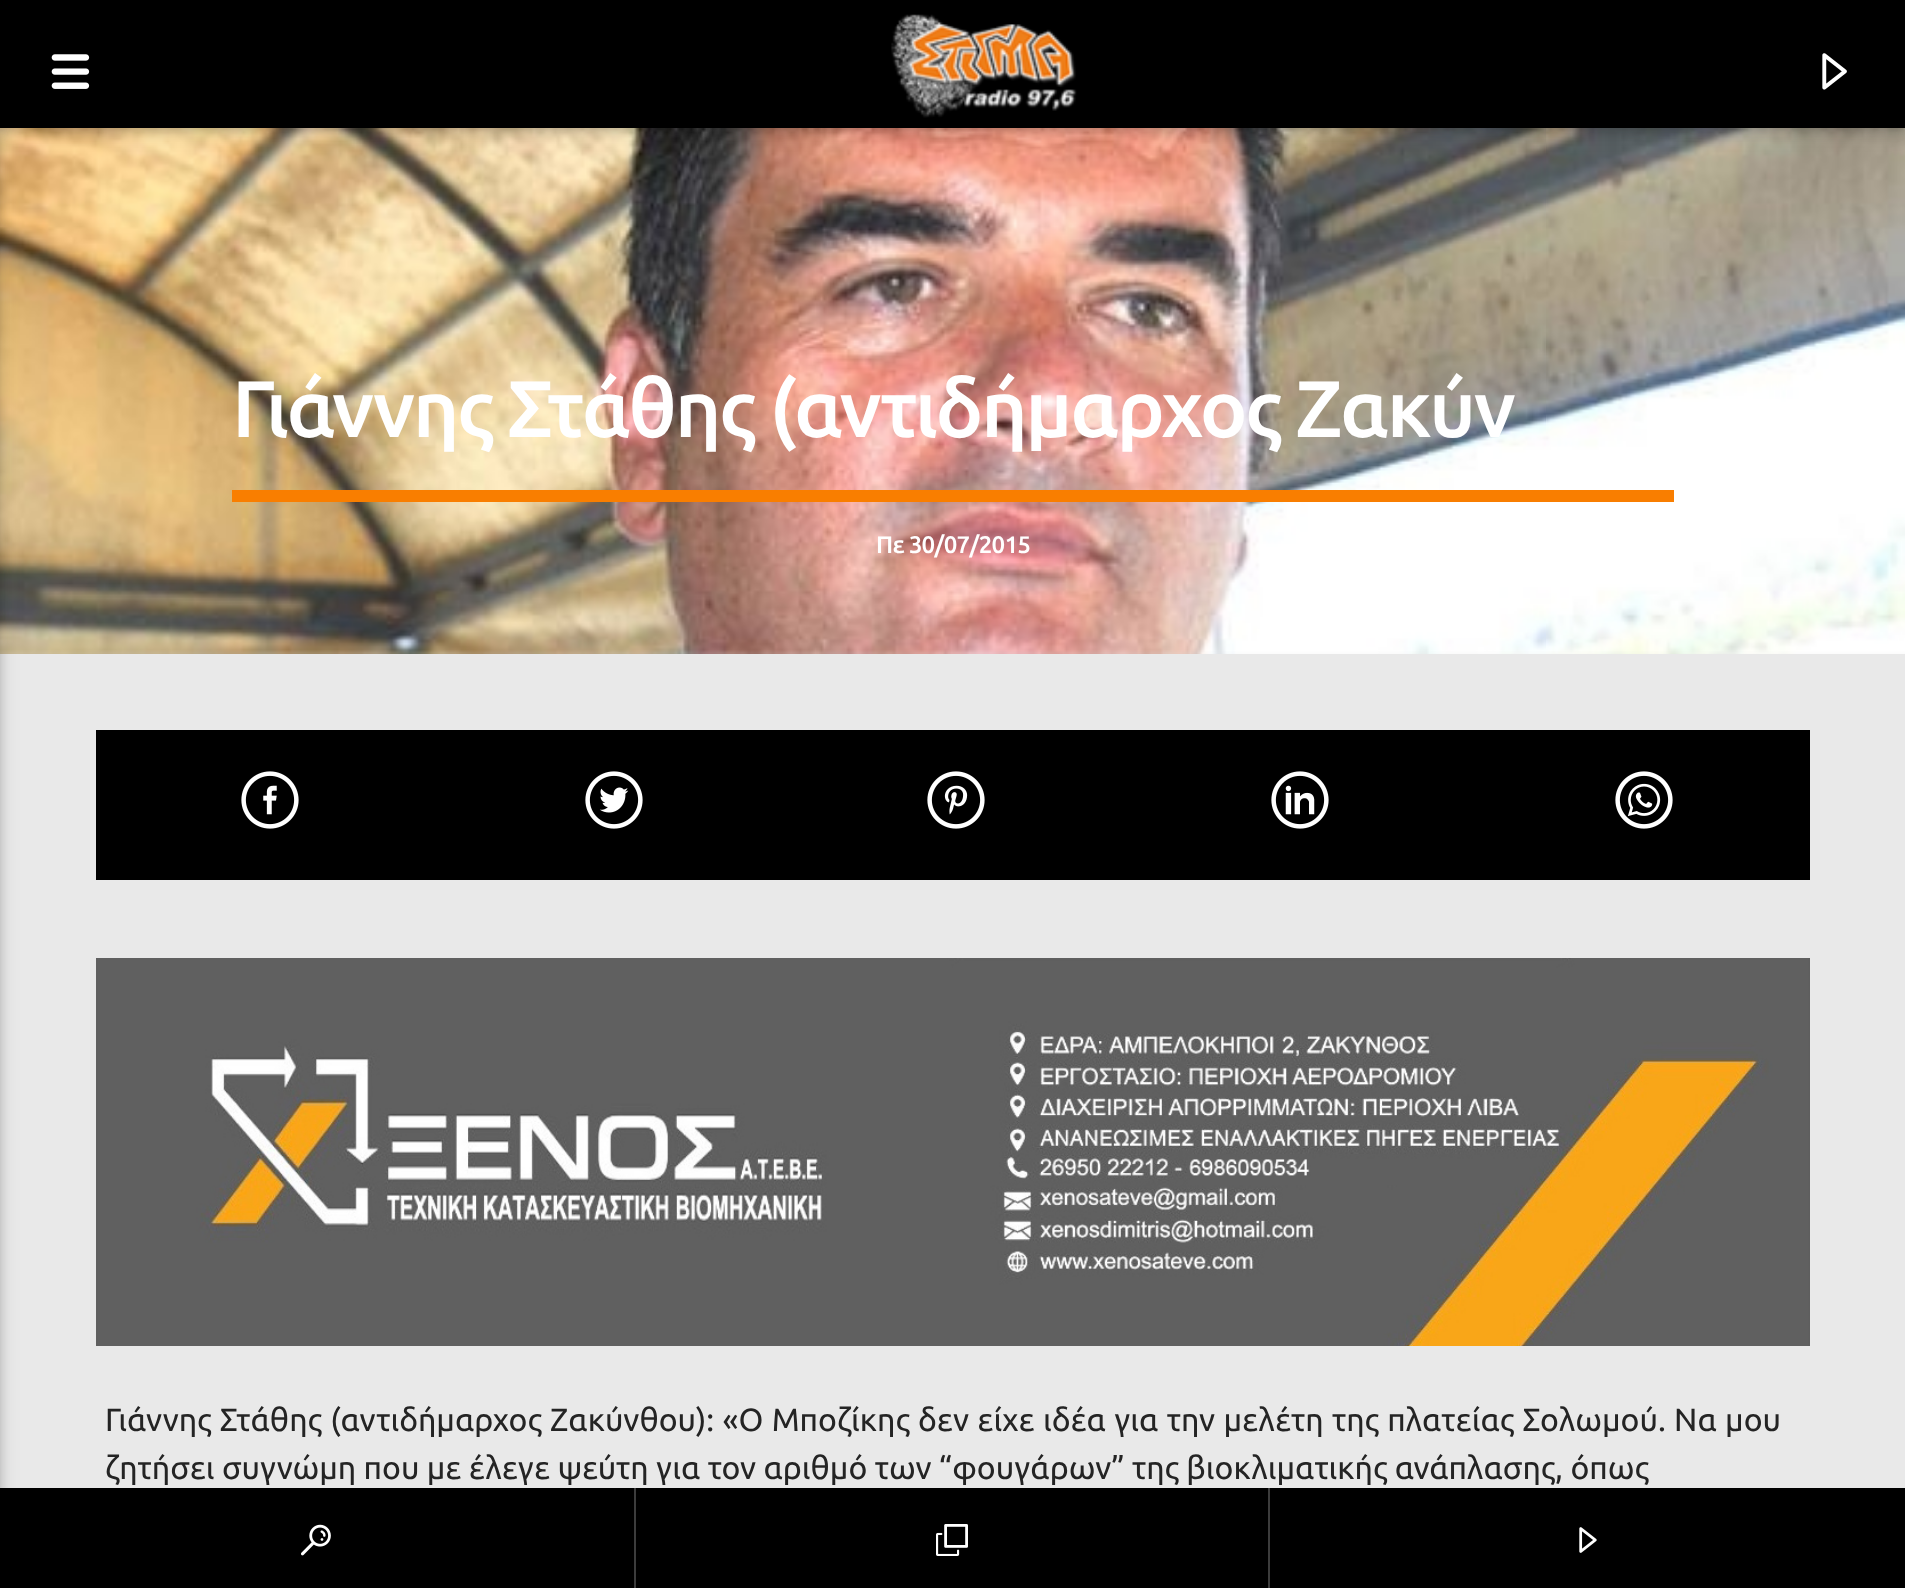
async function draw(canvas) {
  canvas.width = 1905;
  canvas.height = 1588;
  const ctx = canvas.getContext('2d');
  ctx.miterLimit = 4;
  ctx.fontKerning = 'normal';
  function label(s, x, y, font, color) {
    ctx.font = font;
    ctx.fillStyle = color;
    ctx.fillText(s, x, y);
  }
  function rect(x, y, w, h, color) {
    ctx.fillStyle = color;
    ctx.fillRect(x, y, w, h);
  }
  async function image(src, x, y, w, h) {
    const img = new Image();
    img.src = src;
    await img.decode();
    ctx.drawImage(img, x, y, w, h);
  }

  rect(0, 0, 1905, 1588, '#e9e9e9');
  await image('assets/img4.png', 0, 128, 1905, 526);
  ctx.fillStyle = '#0000001f';
  ctx.filter = 'blur(10px)';
  ctx.beginPath();
  ctx.rect(0, 4, 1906, 128);
  ctx.fill();
  ctx.filter = 'none';
  ctx.fillStyle = '#00000029';
  ctx.filter = 'blur(5px)';
  ctx.beginPath();
  ctx.rect(0, 4, 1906, 128);
  ctx.fill();
  ctx.filter = 'none';
  rect(0, 0, 1905, 128, '#000');
  await image('assets/img1.png', 51, 54, 39, 35);
  await image('assets/img2.png', 891, 14, 186, 104);
  await image('assets/img3.png', 1822, 53, 25, 37);
  rect(0, 1488, 1905, 100, '#000');
  ctx.fillStyle = '#0000001f';
  ctx.filter = 'blur(10px)';
  ctx.beginPath();
  ctx.rect(-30, 4, 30, 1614);
  ctx.fill();
  ctx.filter = 'none';
  ctx.fillStyle = '#00000029';
  ctx.filter = 'blur(5px)';
  ctx.beginPath();
  ctx.rect(-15, 4, 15, 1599);
  ctx.fill();
  ctx.filter = 'none';
  rect(232, 490, 1442, 12, '#f97e00');
  ctx.letterSpacing = '-2.4px';
  label('Γιάννης Στάθης (αντιδήμαρχος Ζακύν', 232, 437, '500 80px Ubuntu', '#fff');
  ctx.letterSpacing = '-0.75px';
  label('Πε 30/07/2015', 876, 553, '500 24px Ubuntu', '#fff');
  rect(96, 730, 1714, 150, '#000');
  await image('assets/img5.png', 241, 771, 58, 58);
  await image('assets/img6.png', 585, 771, 58, 58);
  await image('assets/img7.png', 927, 771, 58, 58);
  await image('assets/img8.png', 1271, 771, 58, 58);
  await image('assets/img9.png', 1615, 771, 58, 58);
  await image('assets/img10.png', 96, 958, 1714, 388);
  ctx.letterSpacing = '0px';
  ctx.wordSpacing = '0.9px';
  label('Γιάννης Στάθης (αντιδήμαρχος Ζακύνθου): «Ο Μποζίκης δεν είχε ιδέα για την μελέτη της πλατείας Σολωμού. Να μου', 105, 1431, '32px Ubuntu', '#242424');
  ctx.wordSpacing = '0px';
  label('ζητήσει συγνώμη που με έλεγε ψεύτη για τον αριθμό των “φουγάρων” της βιοκλιματικής ανάπλασης, όπως', 105, 1479, '32px Ubuntu', '#242424');
  rect(634, 1488, 2, 100, '#3c3c3c');
  await image('assets/img11.png', 301, 1524, 30, 32);
  rect(1268, 1488, 2, 100, '#3c3c3c');
  await image('assets/img12.png', 936, 1524, 32, 32);
  await image('assets/img13.png', 1579, 1527, 18, 26);
}

draw(document.querySelector('canvas'));
